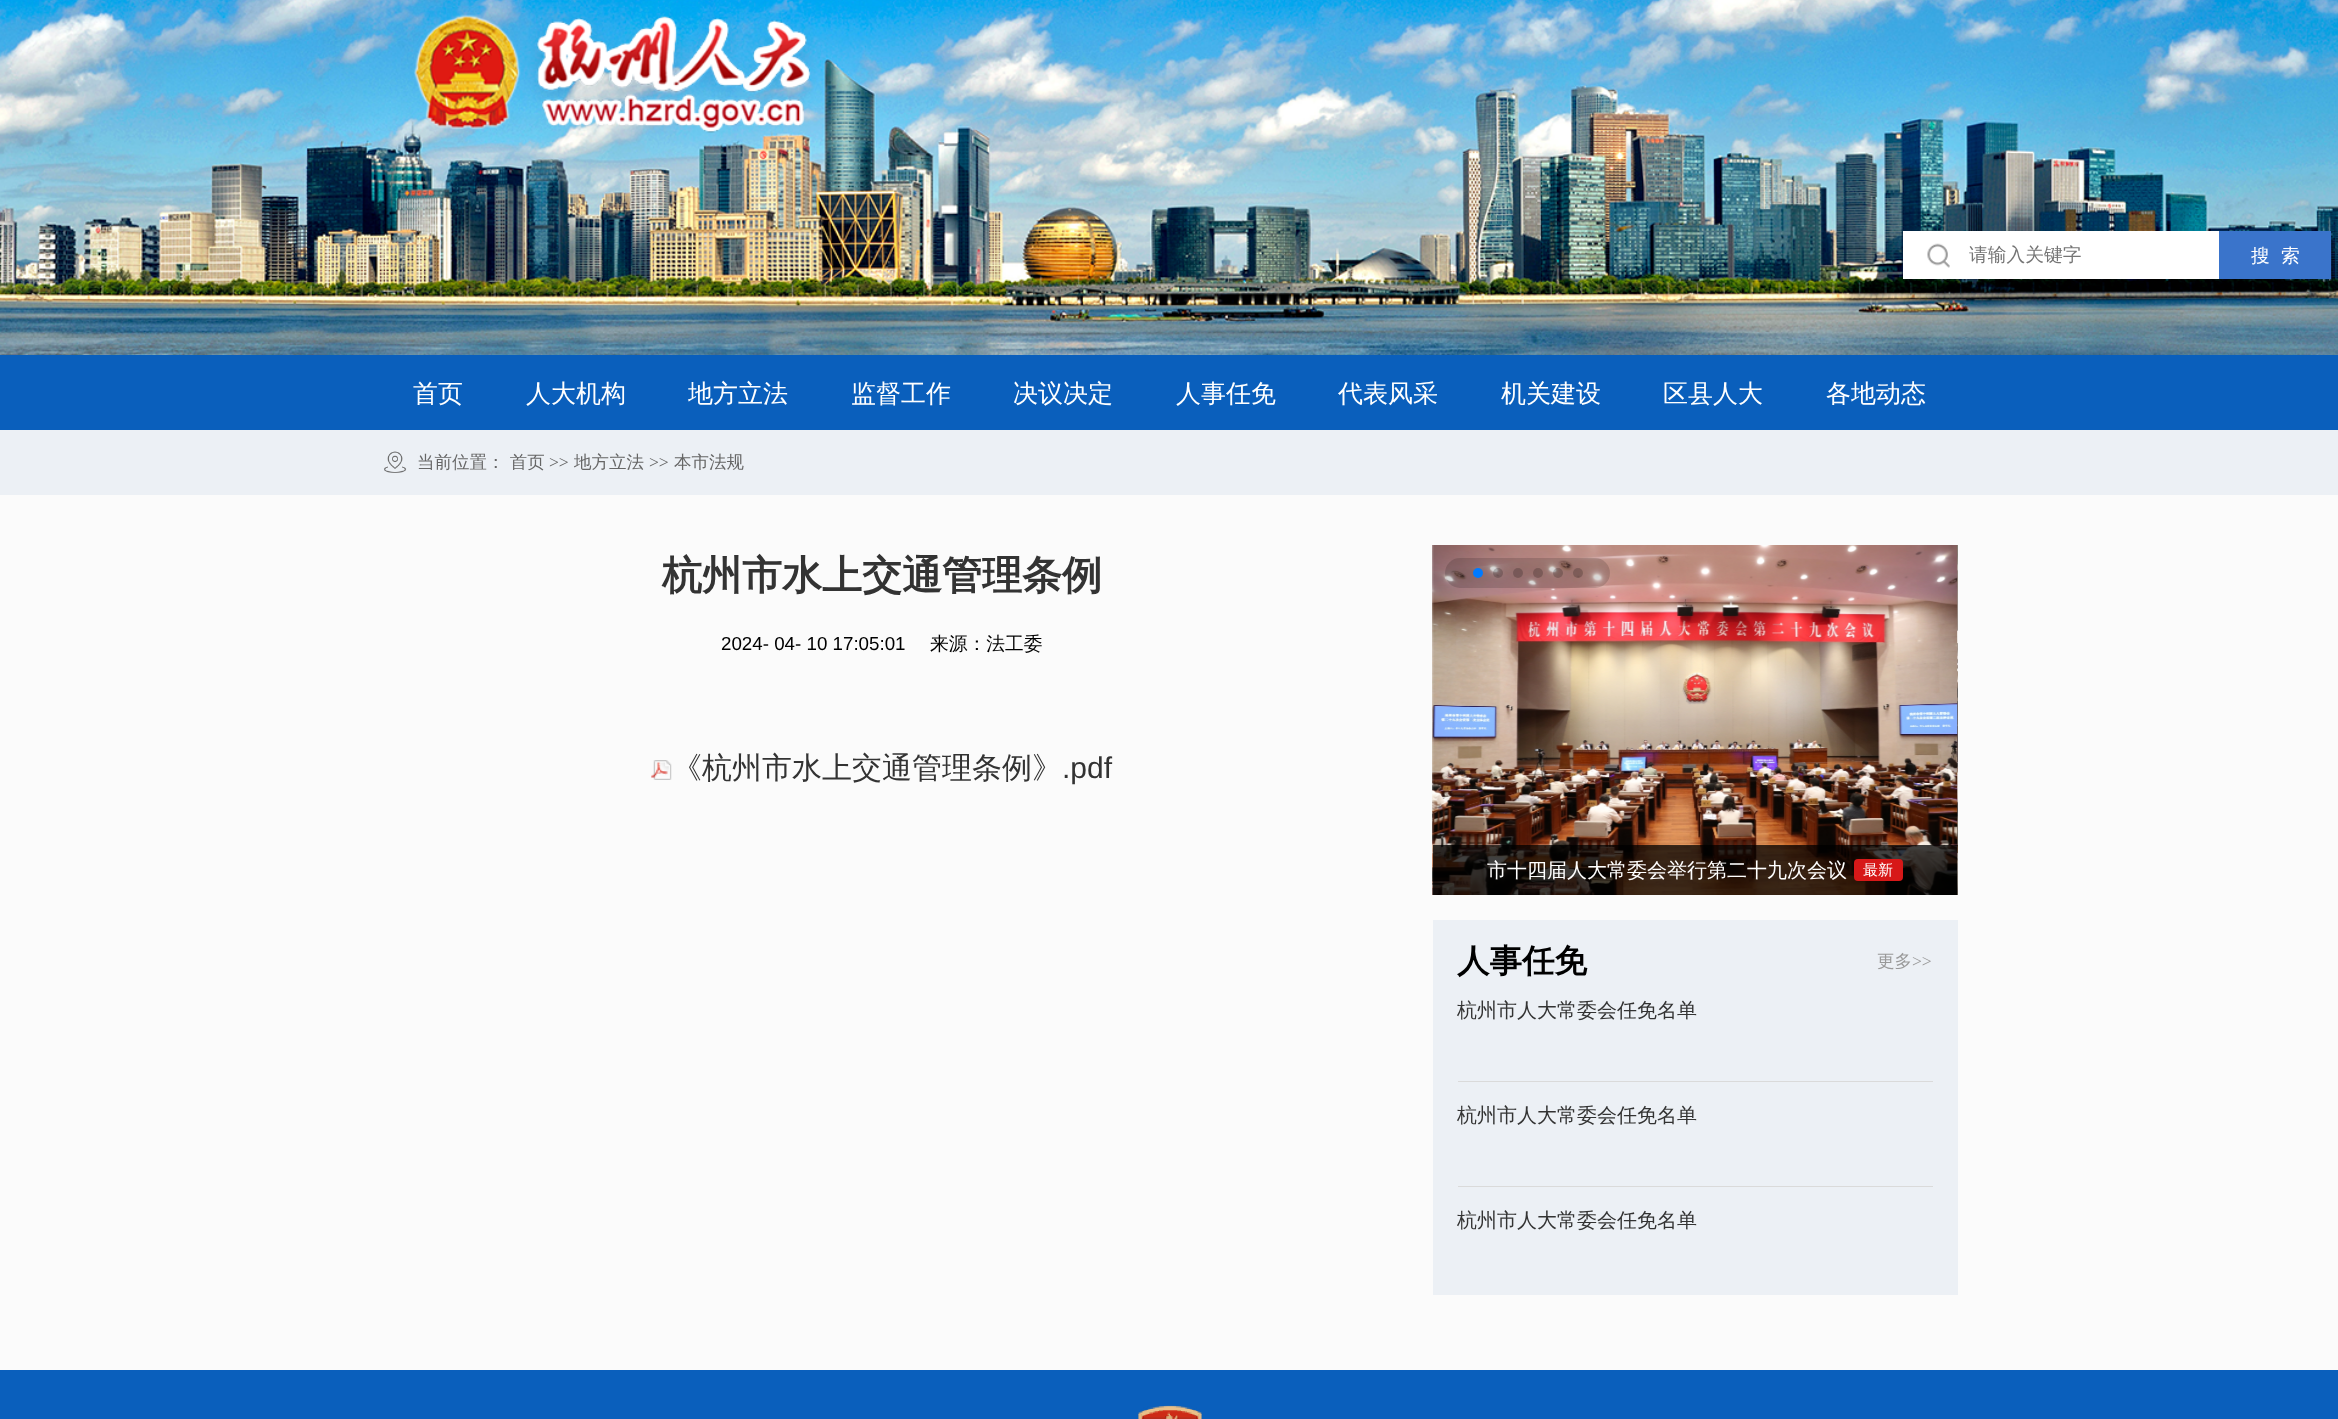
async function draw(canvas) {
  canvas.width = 2338;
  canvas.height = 1419;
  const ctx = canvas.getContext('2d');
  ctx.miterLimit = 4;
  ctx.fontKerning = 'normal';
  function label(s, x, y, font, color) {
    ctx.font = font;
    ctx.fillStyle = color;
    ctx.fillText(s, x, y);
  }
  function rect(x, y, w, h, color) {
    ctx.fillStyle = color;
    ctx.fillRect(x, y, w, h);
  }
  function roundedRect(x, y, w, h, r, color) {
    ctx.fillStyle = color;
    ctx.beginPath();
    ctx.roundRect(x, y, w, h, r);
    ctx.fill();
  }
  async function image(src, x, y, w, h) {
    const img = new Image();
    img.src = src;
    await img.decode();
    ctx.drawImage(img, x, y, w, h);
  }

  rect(0, 0, 2338, 1419, '#fbfbfb');
  await image('assets/img1.png', 0, 0, 2338, 355);
  rect(1903, 231, 316, 48, '#fff');
  await image('assets/img2.png', 1927, 243, 23, 25);
  label('请输入关键字', 1969, 261, '500 18.75px WenQuanYi Zen Hei', '#757575');
  rect(2219, 231, 112, 48, '#3a74cb');
  label('搜  索', 2251, 262, '500 18.75px WenQuanYi Zen Hei', '#fff');
  rect(0, 355, 2338, 75, '#0a5fbc');
  label('首页', 413, 402, '500 25px WenQuanYi Zen Hei', '#fff');
  label('人大机构', 526, 402, '500 25px WenQuanYi Zen Hei', '#fff');
  label('地方立法', 688, 402, '500 25px WenQuanYi Zen Hei', '#fff');
  label('监督工作', 851, 402, '500 25px WenQuanYi Zen Hei', '#fff');
  label('决议决定', 1013, 402, '500 25px WenQuanYi Zen Hei', '#fff');
  label('人事任免', 1176, 402, '500 25px WenQuanYi Zen Hei', '#fff');
  label('代表风采', 1338, 402, '500 25px WenQuanYi Zen Hei', '#fff');
  label('机关建设', 1501, 402, '500 25px WenQuanYi Zen Hei', '#fff');
  label('区县人大', 1663, 402, '500 25px WenQuanYi Zen Hei', '#fff');
  label('各地动态', 1826, 402, '500 25px WenQuanYi Zen Hei', '#fff');
  rect(0, 430, 2338, 65, '#ecf0f5');
  await image('assets/img3.png', 384, 451, 23, 22);
  label('当前位置： 首页', 417, 468, '500 17.5px WenQuanYi Zen Hei', '#666');
  label('>>', 549, 468, '17.5px Liberation Serif', '#666');
  label('地方立法', 574, 468, '500 17.5px WenQuanYi Zen Hei', '#666');
  label('>>', 649, 468, '17.5px Liberation Serif', '#666');
  label('本市法规', 674, 468, '500 17.5px WenQuanYi Zen Hei', '#666');
  label('杭州市水上交通管理条例', 662, 589, 'bold 40px WenQuanYi Zen Hei', '#333');
  label('2024- 04- 10 17:05:01', 721, 650, '18.75px Liberation Sans', '#000');
  label('来源：法工委', 930, 650, '500 18.75px WenQuanYi Zen Hei', '#000');
  await image('assets/img4.png', 651, 760, 21, 20);
  label('《杭州市水上交通管理条例》', 672, 778, '500 30px WenQuanYi Zen Hei', '#333');
  label('.pdf', 1062, 778, '30px Liberation Sans', '#333');
  await image('assets/img5.png', 1432, 545, 526, 350);
  roundedRect(1445, 558, 165, 30, 15, '#00000026');
  ctx.fillStyle = '#007aff';
  ctx.beginPath();
  ctx.arc(1478, 573, 5, 0, 2 * Math.PI);
  ctx.fill();
  ctx.fillStyle = '#00000033';
  ctx.beginPath();
  ctx.arc(1498, 573, 5, 0, 2 * Math.PI);
  ctx.fill();
  ctx.beginPath();
  ctx.arc(1518, 573, 5, 0, 2 * Math.PI);
  ctx.fill();
  ctx.beginPath();
  ctx.arc(1538, 573, 5, 0, 2 * Math.PI);
  ctx.fill();
  ctx.beginPath();
  ctx.arc(1558, 573, 5, 0, 2 * Math.PI);
  ctx.fill();
  ctx.beginPath();
  ctx.arc(1578, 573, 5, 0, 2 * Math.PI);
  ctx.fill();
  rect(1433, 845, 525, 50, '#000000bf');
  label('市十四届人大常委会举行第二十九次会议', 1487, 877, '500 20px WenQuanYi Zen Hei', '#fff');
  roundedRect(1854, 859, 49, 22, 4, '#d71818');
  label('最新', 1863, 875, '500 15px WenQuanYi Zen Hei', '#fff');
  await image('assets/img6.png', 1957, 545, 1, 350);
  rect(1433, 920, 525, 375, '#ecf0f5');
  label('人事任免', 1457, 972, 'bold 32.5px WenQuanYi Zen Hei', '#000');
  label('更多', 1877, 967, '500 17.5px WenQuanYi Zen Hei', '#999');
  label('>>', 1912, 967, '17.5px Liberation Serif', '#999');
  rect(1458, 1081, 475, 1, '#dadada');
  label('杭州市人大常委会任免名单', 1457, 1017, '500 20px WenQuanYi Zen Hei', '#333');
  rect(1458, 1186, 475, 1, '#dadada');
  label('杭州市人大常委会任免名单', 1457, 1122, '500 20px WenQuanYi Zen Hei', '#333');
  label('杭州市人大常委会任免名单', 1457, 1227, '500 20px WenQuanYi Zen Hei', '#333');
  rect(0, 1370, 2338, 49, '#0a5fbc');
  await image('assets/img7.png', 1138, 1405, 64, 14);
}

draw(document.querySelector('canvas'));
